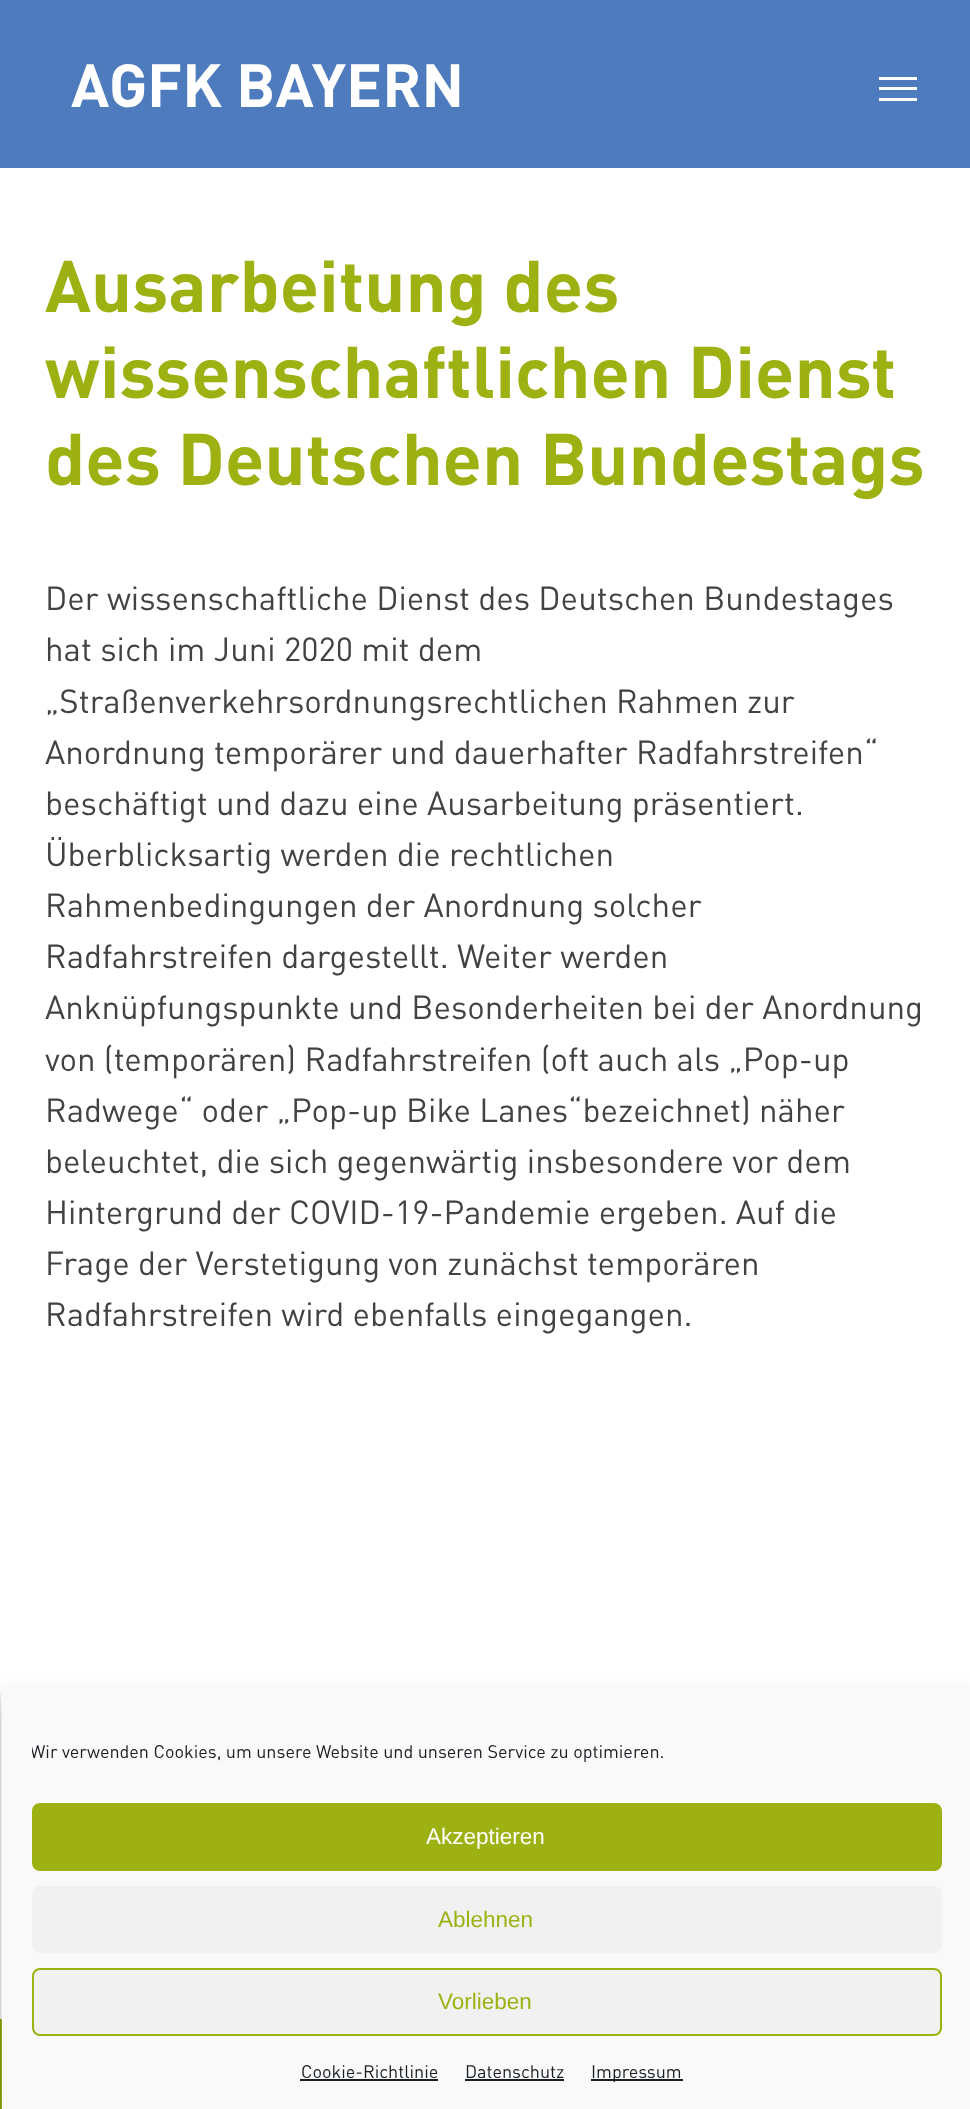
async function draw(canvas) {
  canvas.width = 970;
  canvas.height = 2109;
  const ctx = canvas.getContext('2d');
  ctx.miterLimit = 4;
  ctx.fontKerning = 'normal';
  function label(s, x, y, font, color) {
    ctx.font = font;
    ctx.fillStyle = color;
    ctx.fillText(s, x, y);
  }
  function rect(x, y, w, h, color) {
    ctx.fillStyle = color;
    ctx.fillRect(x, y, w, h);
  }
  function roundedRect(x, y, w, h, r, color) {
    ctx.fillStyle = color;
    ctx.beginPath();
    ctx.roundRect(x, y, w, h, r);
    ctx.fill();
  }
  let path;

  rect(0, 0, 970, 2109, '#fff');
  rect(0, 0, 970, 168, '#4d7bbe');
  label('AGFK BAYERN', 71, 107, 'bold 60px DIN', '#fff');
  rect(879, 77, 38, 3, '#fff');
  rect(879, 87, 38, 3, '#fff');
  rect(879, 98, 38, 3, '#fff');
  label('Ausarbeitung des', 45, 312, 'bold 72px DIN', '#9db212');
  label('wissenschaftlichen Dienst', 45, 398, 'bold 72px DIN', '#9db212');
  label('des Deutschen Bundestags', 45, 485, 'bold 72px DIN', '#9db212');
  label('Der wissenschaftliche Dienst des Deutschen Bundestages', 45, 610, '33.1px DIN', '#414243');
  label('hat sich im Juni 2020 mit dem', 45, 661, '33.1px DIN', '#414243');
  label('„Straßenverkehrsordnungsrechtlichen Rahmen zur', 45, 713, '33.1px DIN', '#414243');
  label('Anordnung temporärer und dauerhafter Radfahrstreifen“', 45, 764, '33.1px DIN', '#414243');
  label('beschäftigt und dazu eine Ausarbeitung präsentiert.', 45, 815, '33.1px DIN', '#414243');
  label('Überblicksartig werden die rechtlichen', 45, 866, '33.1px DIN', '#414243');
  label('Rahmenbedingungen der Anordnung solcher', 45, 917, '33.1px DIN', '#414243');
  label('Radfahrstreifen dargestellt. Weiter werden', 45, 968, '33.1px DIN', '#414243');
  label('Anknüpfungspunkte und Besonderheiten bei der Anordnung', 45, 1019, '33.1px DIN', '#414243');
  label('von (temporären) Radfahrstreifen (oft auch als „Pop-up', 45, 1071, '33.1px DIN', '#414243');
  label('Radwege“ oder „Pop-up Bike Lanes“bezeichnet) näher', 45, 1122, '33.1px DIN', '#414243');
  label('beleuchtet, die sich gegenwärtig insbesondere vor dem', 45, 1173, '33.1px DIN', '#414243');
  label('Hintergrund der COVID-19-Pandemie ergeben. Auf die', 45, 1224, '33.1px DIN', '#414243');
  label('Frage der Verstetigung von zunächst temporären', 45, 1275, '33.1px DIN', '#414243');
  label('Radfahrstreifen wird ebenfalls eingegangen.', 45, 1326, '33.1px DIN', '#414243');
  rect(0, 2019, 2, 90, '#9db212');
  ctx.save();
  ctx.beginPath();
  ctx.rect(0, 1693, 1, 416);
  ctx.clip();
  ctx.fillStyle = '#0000003b';
  ctx.filter = 'blur(4.5px)';
  ctx.beginPath();
  ctx.rect(2, 1695, 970, 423);
  ctx.fill();
  ctx.filter = 'none';
  ctx.restore();
  ctx.save();
  path = new Path2D('M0 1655H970V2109H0ZM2 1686H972V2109H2Z');
  ctx.clip(path, 'evenodd');
  ctx.fillStyle = '#00000030';
  ctx.filter = 'blur(15px)';
  ctx.beginPath();
  ctx.rect(2, 1701, 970, 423);
  ctx.fill();
  ctx.filter = 'none';
  ctx.restore();
  rect(2, 1686, 968, 423, '#f9f9f9');
  ctx.save();
  ctx.beginPath();
  ctx.rect(32, 1739, 910, 34);
  ctx.clip();
  label('Wir verwenden Cookies, um unsere Website und unseren Service zu optimieren.', 30, 1758, '18px DIN', '#191e23');
  ctx.restore();
  ctx.fillStyle = '#9db212';
  ctx.beginPath();
  ctx.roundRect(33, 1804, 908, 66, 7);
  ctx.fill();
  ctx.strokeStyle = '#9db212';
  ctx.lineWidth = 2;
  ctx.stroke();
  label('Akzeptieren', 426, 1844, '22.5px Liberation Sans', '#fff');
  roundedRect(32, 1886, 910, 67, 8, '#f1f1f1');
  label('Ablehnen', 438, 1927, '22.5px Liberation Sans', '#9db212');
  ctx.fillStyle = '#f1f1f1';
  ctx.beginPath();
  ctx.roundRect(33, 1969, 908, 66, 7);
  ctx.fill();
  ctx.stroke();
  label('Vorlieben', 438, 2009, '22.5px Liberation Sans', '#9db212');
  label('Cookie-Richtlinie', 301, 2078, '18px DIN', '#191e23');
  rect(300, 2079, 138, 2, '#191e23');
  label('Datenschutz', 465, 2078, '18px DIN', '#191e23');
  rect(465, 2079, 99, 2, '#191e23');
  rect(591, 2079, 92, 2, '#191e23');
  label('Impressum', 591, 2078, '18px DIN', '#191e23');
}

draw(document.querySelector('canvas'));
